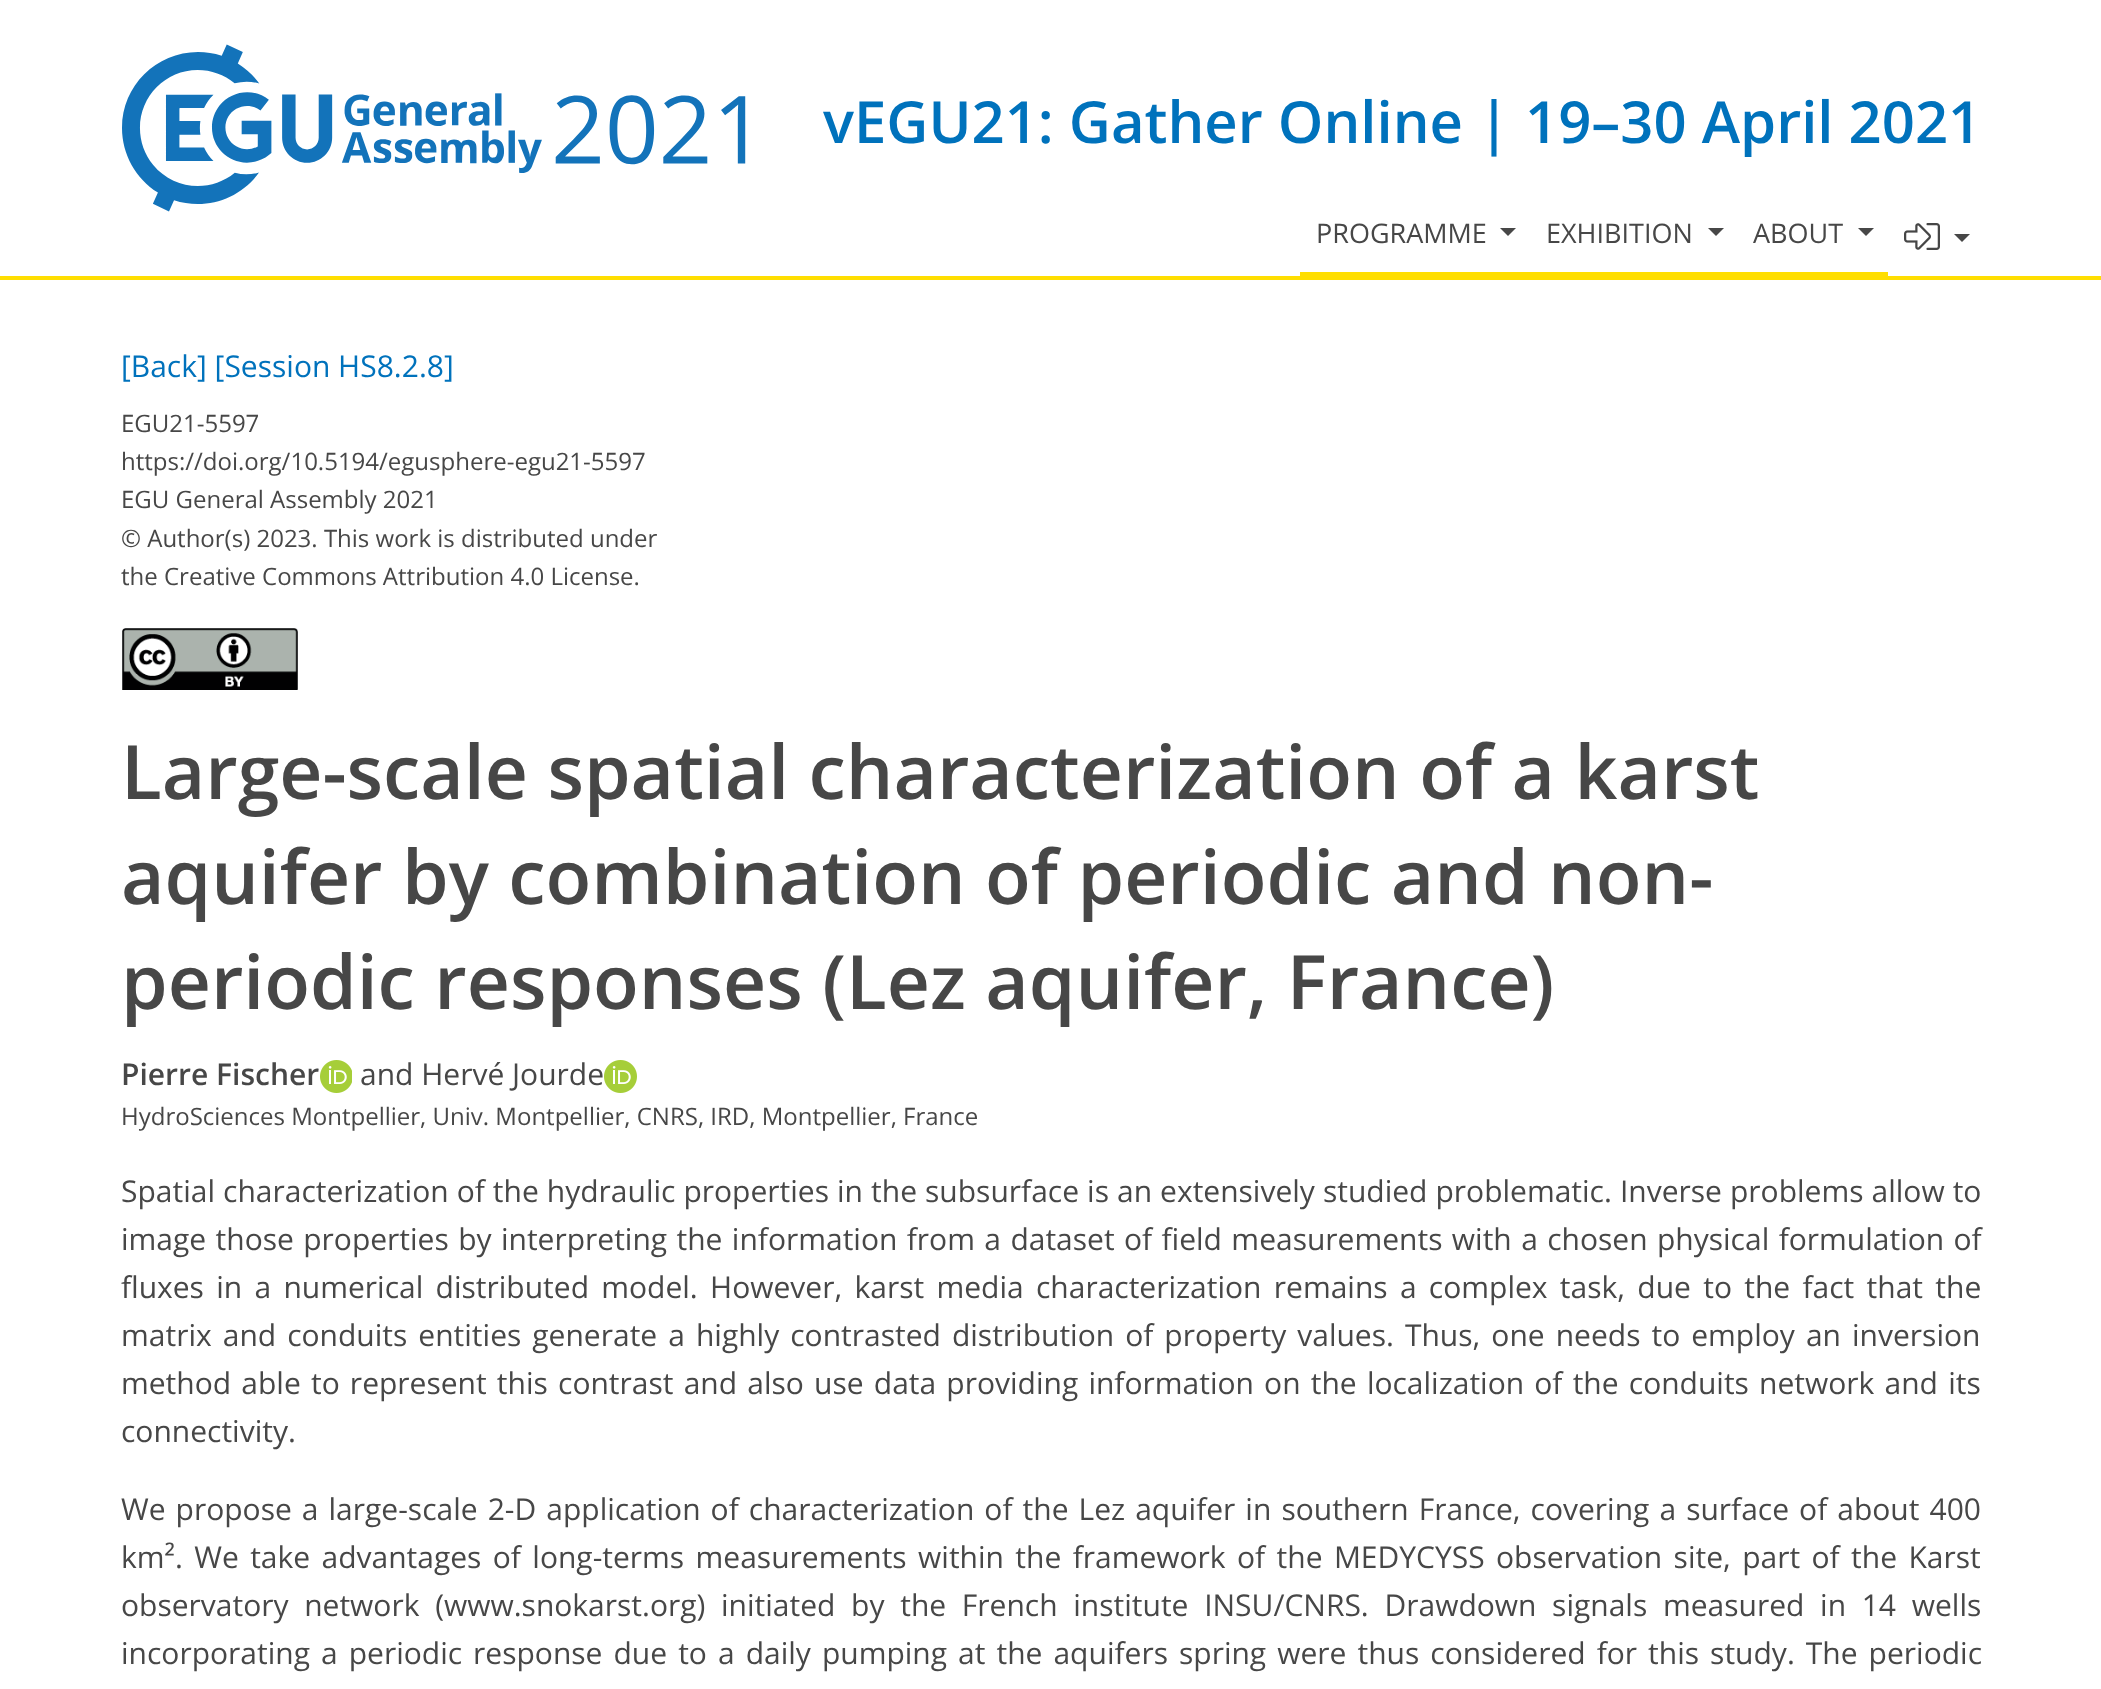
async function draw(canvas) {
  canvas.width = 2101;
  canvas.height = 1689;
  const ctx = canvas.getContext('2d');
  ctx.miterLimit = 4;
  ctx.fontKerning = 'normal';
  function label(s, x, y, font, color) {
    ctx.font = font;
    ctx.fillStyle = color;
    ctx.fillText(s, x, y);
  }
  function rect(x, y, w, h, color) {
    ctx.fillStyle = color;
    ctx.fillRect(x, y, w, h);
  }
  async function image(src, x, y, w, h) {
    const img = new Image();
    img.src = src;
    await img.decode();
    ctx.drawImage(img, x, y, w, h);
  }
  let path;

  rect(0, 0, 2101, 1689, '#fff');
  rect(0, 276, 2101, 4, '#ffde00');
  await image('assets/img1.png', 122, 44, 624, 168);
  label('vEGU21: Gather Online | 19–30 April 2021', 823, 143, '600 58px Open Sans', '#0072bc');
  rect(1300, 272, 588, 4, '#ffde00');
  label('PROGRAMME', 1316, 243, '27px Open Sans', '#474747');
  path = new Path2D('M1500 228H1516L1508 236Z');
  ctx.fill(path);
  label('EXHIBITION', 1546, 243, '27px Open Sans', '#474747');
  path = new Path2D('M1708 228H1724L1716 236Z');
  ctx.fill(path);
  label('ABOUT', 1753, 243, '27px Open Sans', '#474747');
  path = new Path2D('M1858 228H1874L1866 236Z');
  ctx.fill(path);
  await image('assets/img2.png', 1904, 223, 36, 27);
  path = new Path2D('M1954 234H1970L1962 242Z');
  ctx.fill(path);
  label('[Back] [Session HS8.2.8]', 121, 377, '30px Open Sans', '#0072bc');
  label('EGU21-5597', 121, 432, '24px Open Sans', '#474747');
  label('https://doi.org/10.5194/egusphere-egu21-5597', 121, 470, '24px Open Sans', '#474747');
  label('EGU General Assembly 2021', 121, 508, '24px Open Sans', '#474747');
  label('© Author(s) 2023. This work is distributed under', 121, 547, '24px Open Sans', '#474747');
  label('the Creative Commons Attribution 4.0 License.', 121, 585, '24px Open Sans', '#474747');
  await image('assets/img3.png', 122, 628, 176, 62);
  label('Large-scale spatial characterization of a karst', 121, 799, '600 75px Open Sans', '#474747');
  label('aquifer by combination of periodic and non-', 121, 904, '600 75px Open Sans', '#474747');
  label('periodic responses (Lez aquifer, France)', 121, 1009, '600 75px Open Sans', '#474747');
  label('Pierre Fischer', 121, 1085, '600 30px Open Sans', '#474747');
  await image('assets/img4.png', 320, 1060, 32, 33);
  label('and Hervé Jourde', 360, 1085, '30px Open Sans', '#474747');
  await image('assets/img5.png', 604, 1060, 33, 33);
  label('HydroSciences Montpellier, Univ. Montpellier, CNRS, IRD, Montpellier, France', 121, 1125, '24px Open Sans', '#474747');
  ctx.wordSpacing = '0.25px';
  label('Spatial characterization of the hydraulic properties in the subsurface is an extensively studied problematic. Inverse problems allow to', 121, 1202, '30px Open Sans', '#474747');
  ctx.wordSpacing = '1.6px';
  label('image those properties by interpreting the information from a dataset of field measurements with a chosen physical formulation of', 121, 1250, '30px Open Sans', '#474747');
  ctx.wordSpacing = '4.5px';
  label('fluxes in a numerical distributed model. However, karst media characterization remains a complex task, due to the fact that the', 121, 1298, '30px Open Sans', '#474747');
  ctx.wordSpacing = '3.25px';
  label('matrix and conduits entities generate a highly contrasted distribution of property values. Thus, one needs to employ an inversion', 121, 1346, '30px Open Sans', '#474747');
  ctx.wordSpacing = '2.4px';
  label('method able to represent this contrast and also use data providing information on the localization of the conduits network and its', 121, 1394, '30px Open Sans', '#474747');
  ctx.wordSpacing = '0px';
  label('connectivity.', 121, 1442, '30px Open Sans', '#474747');
  ctx.wordSpacing = '2.25px';
  label('We propose a large-scale 2-D application of characterization of the Lez aquifer in southern France, covering a surface of about 400', 121, 1520, '30px Open Sans', '#474747');
  ctx.wordSpacing = '3.6px';
  label('km². We take advantages of long-terms measurements within the framework of the MEDYCYSS observation site, part of the Karst', 121, 1568, '30px Open Sans', '#474747');
  ctx.wordSpacing = '7.9px';
  label('observatory network (www.snokarst.org) initiated by the French institute INSU/CNRS. Drawdown signals measured in 14 wells', 121, 1616, '30px Open Sans', '#474747');
  ctx.wordSpacing = '3.25px';
  label('incorporating a periodic response due to a daily pumping at the aquifers spring were thus considered for this study. The periodic', 121, 1664, '30px Open Sans', '#474747');
}

draw(document.querySelector('canvas'));
